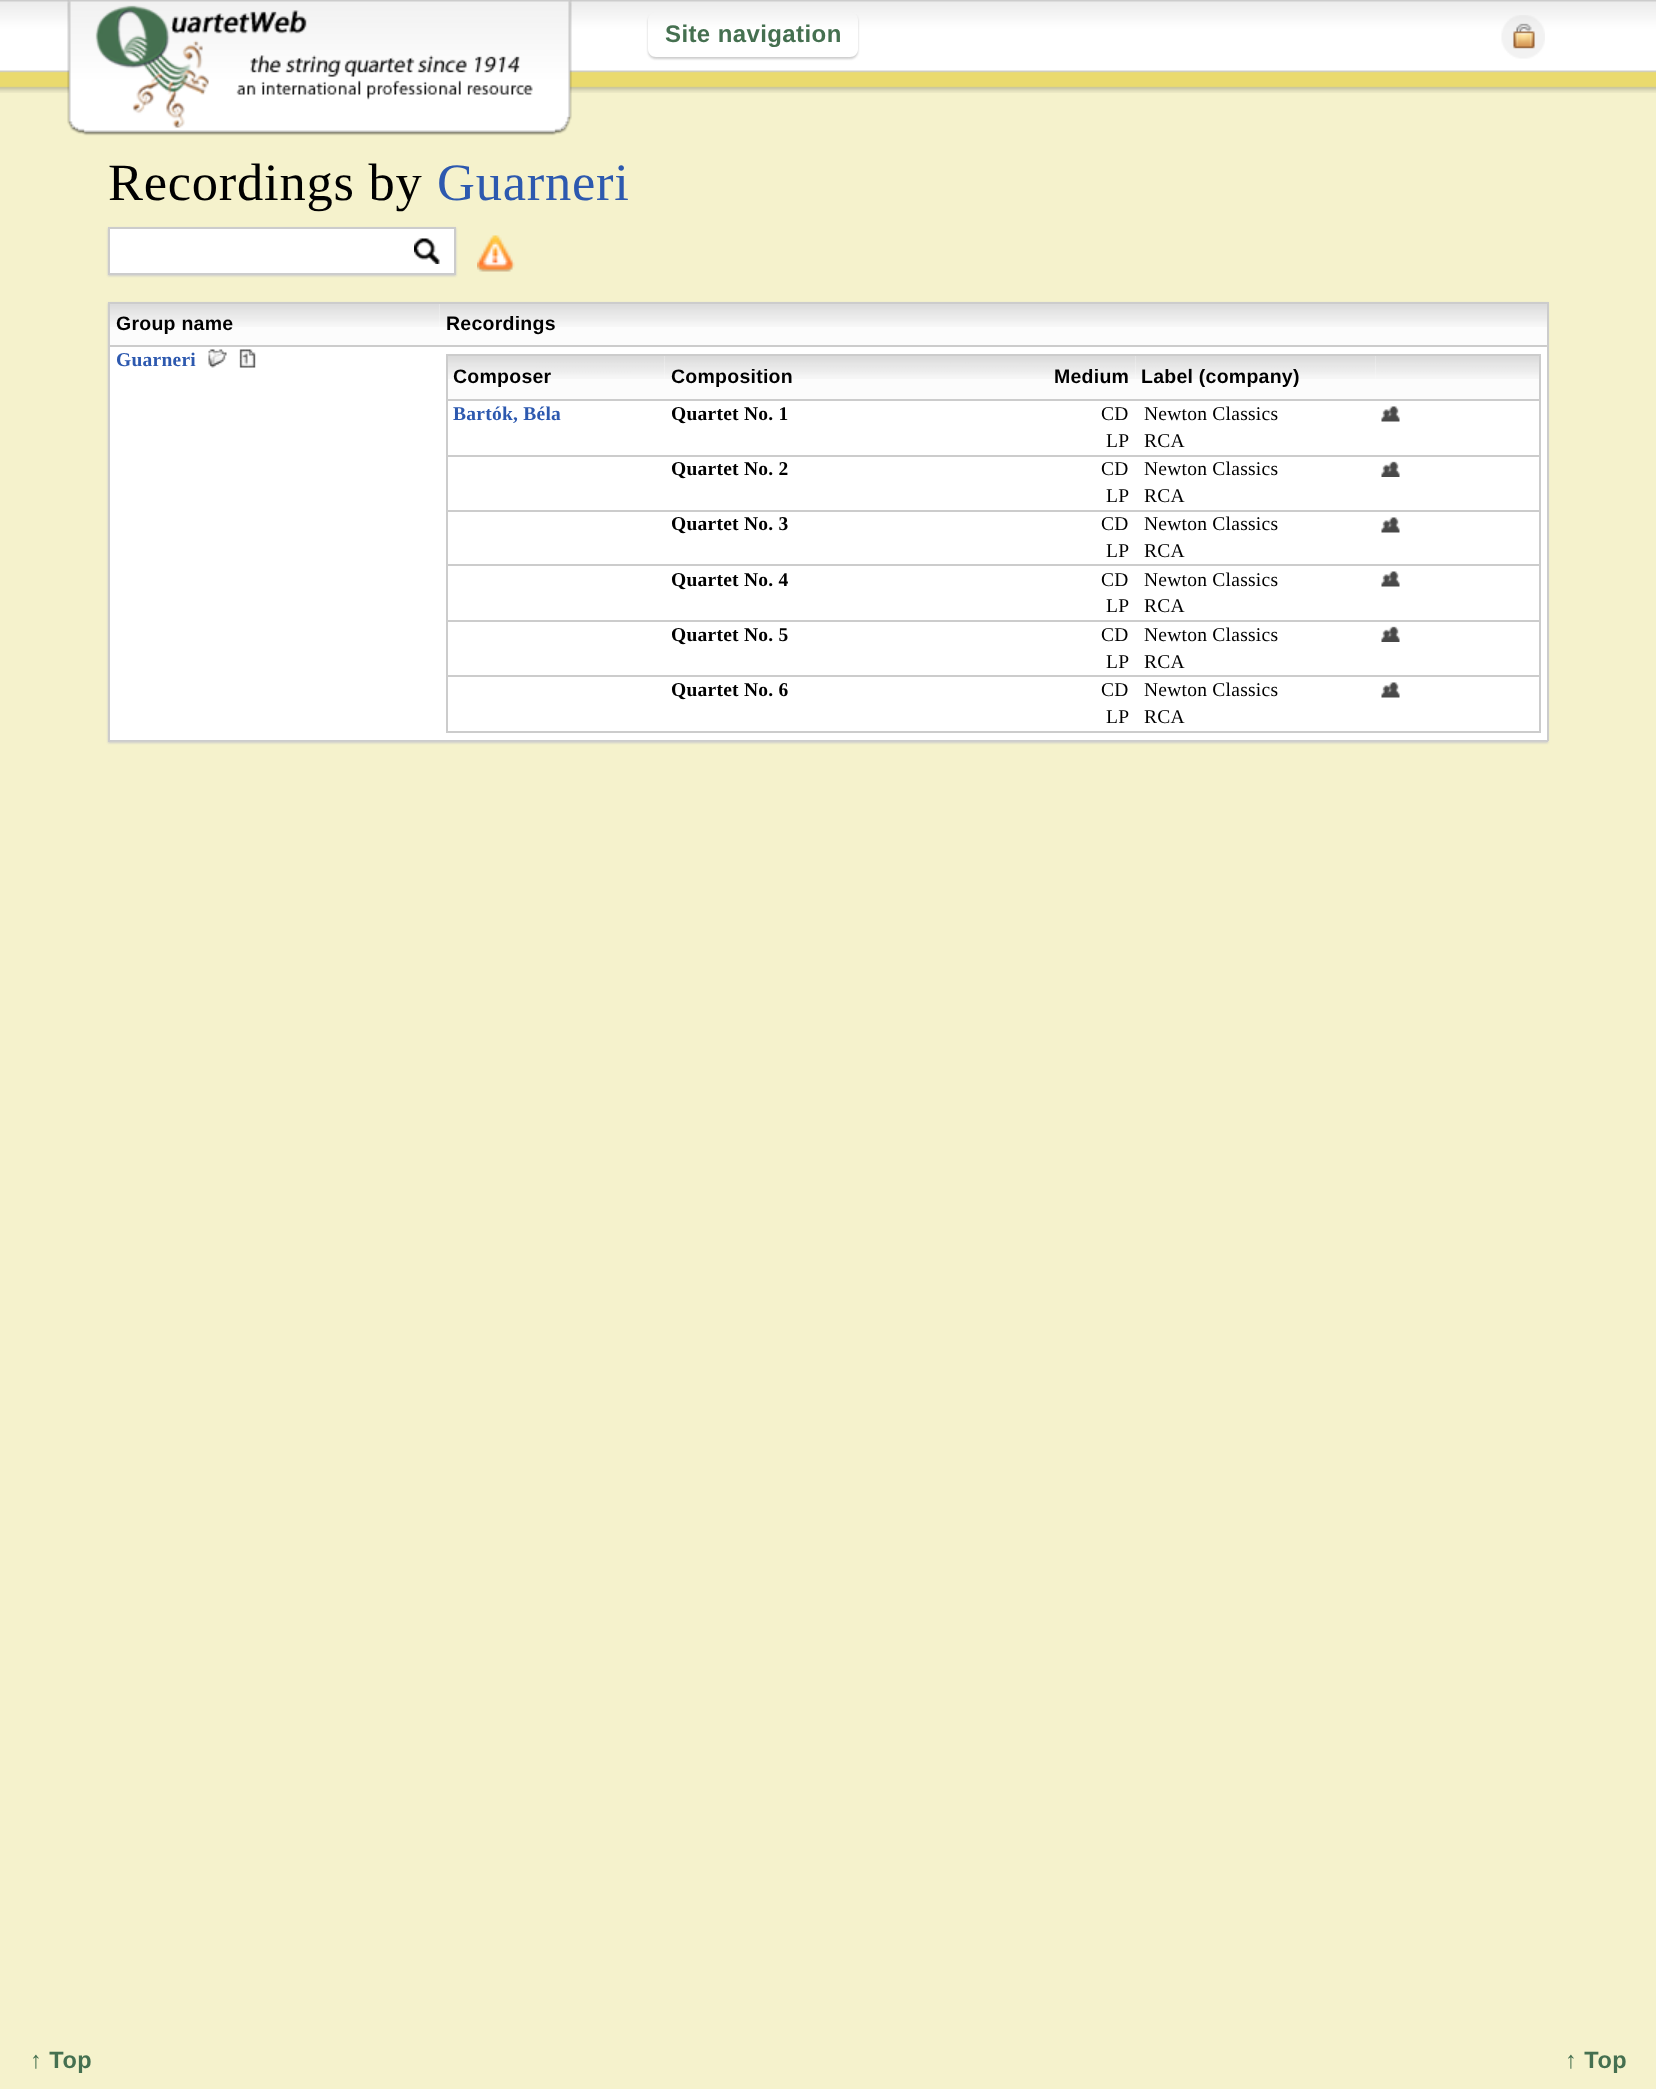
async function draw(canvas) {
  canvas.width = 1656;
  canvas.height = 2089;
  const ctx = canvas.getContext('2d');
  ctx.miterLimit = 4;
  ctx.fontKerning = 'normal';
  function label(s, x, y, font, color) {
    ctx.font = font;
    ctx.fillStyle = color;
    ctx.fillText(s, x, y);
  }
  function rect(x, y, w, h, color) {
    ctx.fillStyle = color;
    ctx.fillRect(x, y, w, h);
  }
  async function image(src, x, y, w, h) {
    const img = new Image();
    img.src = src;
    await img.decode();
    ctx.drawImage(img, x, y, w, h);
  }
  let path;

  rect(0, 0, 1656, 2089, '#f5f2cc');
  await image('assets/img1.png', 0, 0, 1656, 93);
  await image('assets/img2.png', 67, 0, 505, 136);
  ctx.save();
  path = new Path2D('M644 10H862V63H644ZM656 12H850C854.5 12 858 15.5 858 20V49C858 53.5 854.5 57 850 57H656C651.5 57 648 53.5 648 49V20C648 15.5 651.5 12 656 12Z');
  ctx.clip(path, 'evenodd');
  ctx.fillStyle = '#ccc';
  ctx.filter = 'blur(1px)';
  ctx.beginPath();
  ctx.roundRect(648, 14, 210, 45, 8);
  ctx.fill();
  ctx.filter = 'none';
  ctx.restore();
  ctx.letterSpacing = '0.4px';
  label('Site navigation', 665, 42, 'bold 24px Liberation Sans', '#457050');
  await image('assets/img3.png', 1501, 15, 44, 44);
  ctx.letterSpacing = '0.75px';
  label('Recordings by', 108, 200, '52.5px Liberation Serif', '#000');
  label('Guarneri', 437, 200, '52.5px Liberation Serif', '#2d59af');
  ctx.fillStyle = '#ccc';
  ctx.filter = 'blur(1px)';
  ctx.beginPath();
  ctx.rect(108, 228, 348, 48);
  ctx.fill();
  ctx.filter = 'none';
  ctx.fillStyle = '#fff';
  ctx.beginPath();
  ctx.rect(109, 228, 346, 46);
  ctx.fill();
  ctx.strokeStyle = '#ccc';
  ctx.lineWidth = 2;
  ctx.stroke();
  await image('assets/img4.png', 414, 238, 26, 26);
  await image('assets/img5.png', 477, 235, 38, 37);
  ctx.fillStyle = '#ccc';
  ctx.filter = 'blur(1px)';
  ctx.beginPath();
  ctx.rect(108, 303, 1440, 440);
  ctx.fill();
  ctx.filter = 'none';
  rect(110, 347, 1437, 393, '#fff');
  rect(108, 302, 1440, 2, '#ccc');
  rect(1547, 302, 2, 439, '#ccc');
  rect(108, 302, 2, 440, '#ccc');
  rect(110, 304, 330, 41, '#fcfcfc');
  await image('assets/img6.png', 110, 304, 330, 23);
  ctx.letterSpacing = '0.25px';
  label('Group name', 116, 330, 'bold 19.5px Liberation Sans', '#000');
  rect(440, 327, 1107, 18, '#fcfcfc');
  await image('assets/img7.png', 439, 304, 1108, 23);
  label('Recordings', 446, 330, 'bold 19.5px Liberation Sans', '#000');
  label('Guarneri', 116, 366, 'bold 19.5px Liberation Serif', '#2d59af');
  await image('assets/img8.png', 208, 349, 19, 19);
  await image('assets/img9.png', 239, 349, 17, 19);
  rect(1546, 741, 2, 1, '#ccc');
  rect(446, 354, 1095, 2, '#ccc');
  rect(1539, 354, 2, 378, '#ccc');
  rect(446, 354, 2, 378, '#ccc');
  rect(1376, 379, 163, 20, '#fcfcfc');
  rect(939, 356, 437, 43, '#fcfcfc');
  await image('assets/img13.png', 939, 356, 197, 23);
  await image('assets/img14.png', 1135, 356, 241, 23);
  await image('assets/img10.png', 1375, 356, 164, 23);
  rect(446, 399, 1095, 2, '#ccc');
  rect(448, 356, 217, 43, '#fcfcfc');
  await image('assets/img11.png', 448, 356, 217, 23);
  label('Composer', 453, 383, 'bold 19.5px Liberation Sans', '#000');
  rect(665, 379, 274, 20, '#fcfcfc');
  await image('assets/img12.png', 664, 356, 275, 23);
  label('Composition', 671, 383, 'bold 19.5px Liberation Sans', '#000');
  label('Medium', 1054, 383, 'bold 19.5px Liberation Sans', '#000');
  label('Label (company)', 1141, 383, 'bold 19.5px Liberation Sans', '#000');
  rect(446, 455, 1095, 2, '#ccc');
  label('Bartók, Béla', 453, 420, 'bold 19.5px Liberation Serif', '#2d59af');
  label('Quartet No. 1', 671, 420, 'bold 19.5px Liberation Serif', '#000');
  label('CD', 1101, 420, '19.5px Liberation Serif', '#000');
  label('Newton Classics', 1144, 420, '19.5px Liberation Serif', '#000');
  label('LP', 1106, 447, '19.5px Liberation Serif', '#000');
  label('RCA', 1144, 447, '19.5px Liberation Serif', '#000');
  await image('assets/img15.png', 1381, 406, 19, 16);
  rect(446, 510, 1095, 2, '#ccc');
  label('Quartet No. 2', 671, 475, 'bold 19.5px Liberation Serif', '#000');
  label('CD', 1101, 475, '19.5px Liberation Serif', '#000');
  label('Newton Classics', 1144, 475, '19.5px Liberation Serif', '#000');
  label('LP', 1106, 502, '19.5px Liberation Serif', '#000');
  label('RCA', 1144, 502, '19.5px Liberation Serif', '#000');
  await image('assets/img16.png', 1381, 461, 19, 16);
  rect(446, 564, 1095, 2, '#ccc');
  label('Quartet No. 3', 671, 530, 'bold 19.5px Liberation Serif', '#000');
  label('CD', 1101, 530, '19.5px Liberation Serif', '#000');
  label('Newton Classics', 1144, 530, '19.5px Liberation Serif', '#000');
  label('LP', 1106, 557, '19.5px Liberation Serif', '#000');
  label('RCA', 1144, 557, '19.5px Liberation Serif', '#000');
  await image('assets/img15.png', 1381, 517, 19, 16);
  rect(446, 620, 1095, 2, '#ccc');
  label('Quartet No. 4', 671, 586, 'bold 19.5px Liberation Serif', '#000');
  label('CD', 1101, 586, '19.5px Liberation Serif', '#000');
  label('Newton Classics', 1144, 586, '19.5px Liberation Serif', '#000');
  label('LP', 1106, 612, '19.5px Liberation Serif', '#000');
  label('RCA', 1144, 612, '19.5px Liberation Serif', '#000');
  await image('assets/img15.png', 1381, 571, 19, 16);
  rect(446, 675, 1095, 2, '#ccc');
  label('Quartet No. 5', 671, 641, 'bold 19.5px Liberation Serif', '#000');
  label('CD', 1101, 641, '19.5px Liberation Serif', '#000');
  label('Newton Classics', 1144, 641, '19.5px Liberation Serif', '#000');
  label('LP', 1106, 668, '19.5px Liberation Serif', '#000');
  label('RCA', 1144, 668, '19.5px Liberation Serif', '#000');
  await image('assets/img16.png', 1381, 626, 19, 16);
  rect(446, 731, 1095, 2, '#ccc');
  label('Quartet No. 6', 671, 696, 'bold 19.5px Liberation Serif', '#000');
  label('CD', 1101, 696, '19.5px Liberation Serif', '#000');
  label('Newton Classics', 1144, 696, '19.5px Liberation Serif', '#000');
  label('LP', 1106, 723, '19.5px Liberation Serif', '#000');
  label('RCA', 1144, 723, '19.5px Liberation Serif', '#000');
  await image('assets/img15.png', 1381, 682, 19, 16);
  ctx.letterSpacing = '0.5px';
  label('↑ Top', 30, 2068, 'bold 23.5px Liberation Sans', '#457050');
  label('↑ Top', 1565, 2068, 'bold 23.5px Liberation Sans', '#457050');
}

draw(document.querySelector('canvas'));
